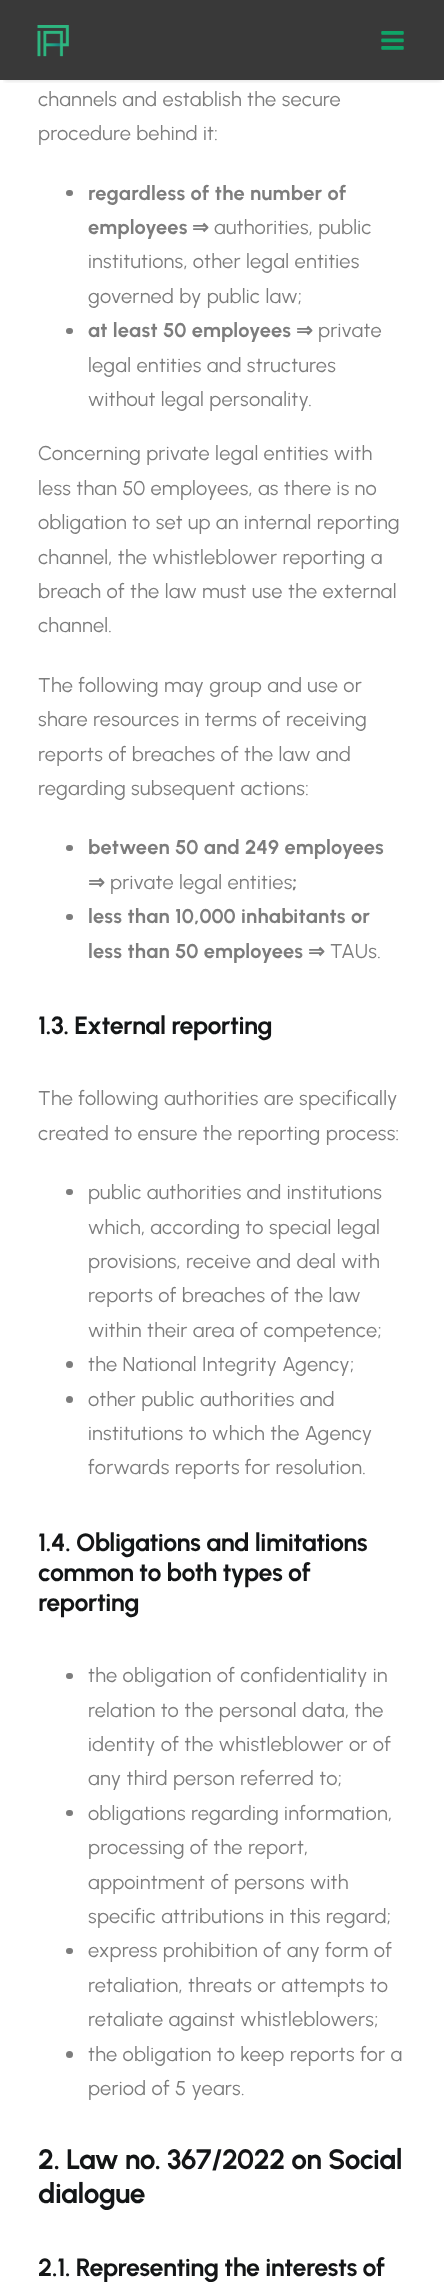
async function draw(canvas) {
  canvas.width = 444;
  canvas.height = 2282;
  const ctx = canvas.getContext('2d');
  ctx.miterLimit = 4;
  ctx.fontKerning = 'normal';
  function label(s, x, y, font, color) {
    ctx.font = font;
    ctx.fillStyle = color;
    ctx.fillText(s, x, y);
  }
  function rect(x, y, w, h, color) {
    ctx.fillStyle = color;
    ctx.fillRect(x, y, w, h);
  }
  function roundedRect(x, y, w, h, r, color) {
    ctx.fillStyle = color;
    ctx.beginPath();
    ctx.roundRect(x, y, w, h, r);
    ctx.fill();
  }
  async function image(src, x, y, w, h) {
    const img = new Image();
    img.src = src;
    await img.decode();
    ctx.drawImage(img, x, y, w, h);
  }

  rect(0, 0, 444, 2282, '#fff');
  rect(0, 0, 444, 80, '#393939');
  ctx.save();
  ctx.beginPath();
  ctx.rect(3, 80, 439, 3);
  ctx.clip();
  ctx.fillStyle = '#0000001f';
  ctx.filter = 'blur(2px)';
  ctx.beginPath();
  ctx.rect(4, 9, 437, 72);
  ctx.fill();
  ctx.filter = 'none';
  ctx.restore();
  await image('assets/img1.png', 37, 25, 32, 32);
  await image('assets/img2.png', 381, 31, 23, 19);
  ctx.letterSpacing = '0.3px';
  label('channels and establish the secure', 38, 106, '20px Urbanist', '#7d7d7d');
  label('procedure behind it:', 38, 140, '20px Urbanist', '#7d7d7d');
  roundedRect(66, 190, 7, 6, 3, '#7d7d7d');
  label('regardless of the number of', 88, 200, 'bold 20px Urbanist', '#7d7d7d');
  label('employees', 88, 234, 'bold 20px Urbanist', '#7d7d7d');
  label('⇒', 192, 234, 'bold 20px DejaVu Sans', '#7d7d7d');
  label('authorities, public', 214, 234, '20px Urbanist', '#7d7d7d');
  label('institutions, other legal entities', 88, 268, '20px Urbanist', '#7d7d7d');
  label('governed by public law;', 88, 303, '20px Urbanist', '#7d7d7d');
  roundedRect(66, 328, 7, 6, 3, '#7d7d7d');
  label('at least 50 employees', 88, 337, 'bold 20px Urbanist', '#7d7d7d');
  label('⇒', 296, 337, 'bold 20px DejaVu Sans', '#7d7d7d');
  label('private', 318, 337, '20px Urbanist', '#7d7d7d');
  label('legal entities and structures', 88, 372, '20px Urbanist', '#7d7d7d');
  label('without legal personality.', 88, 406, '20px Urbanist', '#7d7d7d');
  label('Concerning private legal entities with', 38, 460, '20px Urbanist', '#7d7d7d');
  label('less than 50 employees, as there is no', 38, 495, '20px Urbanist', '#7d7d7d');
  label('obligation to set up an internal reporting', 38, 529, '20px Urbanist', '#7d7d7d');
  label('channel, the whistleblower reporting a', 38, 564, '20px Urbanist', '#7d7d7d');
  label('breach of the law must use the external', 38, 598, '20px Urbanist', '#7d7d7d');
  label('channel.', 38, 632, '20px Urbanist', '#7d7d7d');
  label('The following may group and use or', 38, 692, '20px Urbanist', '#7d7d7d');
  label('share resources in terms of receiving', 38, 726, '20px Urbanist', '#7d7d7d');
  label('reports of breaches of the law and', 38, 761, '20px Urbanist', '#7d7d7d');
  label('regarding subsequent actions:', 38, 795, '20px Urbanist', '#7d7d7d');
  roundedRect(66, 845, 7, 6, 3, '#7d7d7d');
  label('between 50 and 249 employees', 88, 854, 'bold 20px Urbanist', '#7d7d7d');
  label('⇒', 88, 889, 'bold 20px DejaVu Sans', '#7d7d7d');
  label('private legal entities', 110, 889, '20px Urbanist', '#7d7d7d');
  label(';', 292, 889, 'bold 20px Urbanist', '#7d7d7d');
  roundedRect(66, 914, 7, 6, 3, '#7d7d7d');
  label('less than 10,000 inhabitants or', 88, 923, 'bold 20px Urbanist', '#7d7d7d');
  label('less than 50 employees', 88, 958, 'bold 20px Urbanist', '#7d7d7d');
  label('⇒', 308, 958, 'bold 20px DejaVu Sans', '#7d7d7d');
  label('TAUs.', 330, 958, '20px Urbanist', '#7d7d7d');
  ctx.letterSpacing = '-0.4px';
  label('1.3. External reporting', 38, 1034, 'bold 25px Urbanist', '#141617');
  ctx.letterSpacing = '0.3px';
  label('The following authorities are specifically', 38, 1105, '20px Urbanist', '#7d7d7d');
  label('created to ensure the reporting process:', 38, 1140, '20px Urbanist', '#7d7d7d');
  roundedRect(66, 1189, 7, 6, 3, '#7d7d7d');
  label('public authorities and institutions', 88, 1199, '20px Urbanist', '#7d7d7d');
  label('which, according to special legal', 88, 1234, '20px Urbanist', '#7d7d7d');
  label('provisions, receive and deal with', 88, 1268, '20px Urbanist', '#7d7d7d');
  label('reports of breaches of the law', 88, 1302, '20px Urbanist', '#7d7d7d');
  label('within their area of competence;', 88, 1337, '20px Urbanist', '#7d7d7d');
  ctx.beginPath();
  ctx.arc(69.5, 1364.5, 3.5, 0, 2 * Math.PI);
  ctx.fill();
  label('the National Integrity Agency;', 88, 1371, '20px Urbanist', '#7d7d7d');
  ctx.beginPath();
  ctx.arc(69.5, 1399.5, 3.5, 0, 2 * Math.PI);
  ctx.fill();
  label('other public authorities and', 88, 1406, '20px Urbanist', '#7d7d7d');
  label('institutions to which the Agency', 88, 1440, '20px Urbanist', '#7d7d7d');
  label('forwards reports for resolution.', 88, 1474, '20px Urbanist', '#7d7d7d');
  ctx.letterSpacing = '-0.4px';
  label('1.4. Obligations and limitations', 38, 1551, 'bold 25px Urbanist', '#141617');
  label('common to both types of', 38, 1581, 'bold 25px Urbanist', '#141617');
  label('reporting', 38, 1611, 'bold 25px Urbanist', '#141617');
  roundedRect(66, 1673, 7, 6, 3, '#7d7d7d');
  ctx.letterSpacing = '0.3px';
  label('the obligation of confidentiality in', 88, 1682, '20px Urbanist', '#7d7d7d');
  label('relation to the personal data, the', 88, 1717, '20px Urbanist', '#7d7d7d');
  label('identity of the whistleblower or of', 88, 1751, '20px Urbanist', '#7d7d7d');
  label('any third person referred to;', 88, 1785, '20px Urbanist', '#7d7d7d');
  roundedRect(66, 1810, 7, 6, 3, '#7d7d7d');
  label('obligations regarding information,', 88, 1820, '20px Urbanist', '#7d7d7d');
  label('processing of the report,', 88, 1854, '20px Urbanist', '#7d7d7d');
  label('appointment of persons with', 88, 1889, '20px Urbanist', '#7d7d7d');
  label('specific attributions in this regard;', 88, 1923, '20px Urbanist', '#7d7d7d');
  roundedRect(66, 1948, 7, 6, 3, '#7d7d7d');
  label('express prohibition of any form of', 88, 1957, '20px Urbanist', '#7d7d7d');
  label('retaliation, threats or attempts to', 88, 1992, '20px Urbanist', '#7d7d7d');
  label('retaliate against whistleblowers;', 88, 2026, '20px Urbanist', '#7d7d7d');
  ctx.beginPath();
  ctx.arc(69.5, 2054.5, 3.5, 0, 2 * Math.PI);
  ctx.fill();
  label('the obligation to keep reports for a', 88, 2061, '20px Urbanist', '#7d7d7d');
  label('period of 5 years.', 88, 2095, '20px Urbanist', '#7d7d7d');
  ctx.letterSpacing = '-0.4px';
  label('2. Law no. 367/2022 on Social', 38, 2169, 'bold 28.1px Urbanist', '#141617');
  label('dialogue', 38, 2203, 'bold 28.1px Urbanist', '#141617');
  label('2.1. Representing the interests of', 38, 2276, 'bold 25px Urbanist', '#141617');
}

draw(document.querySelector('canvas'));
